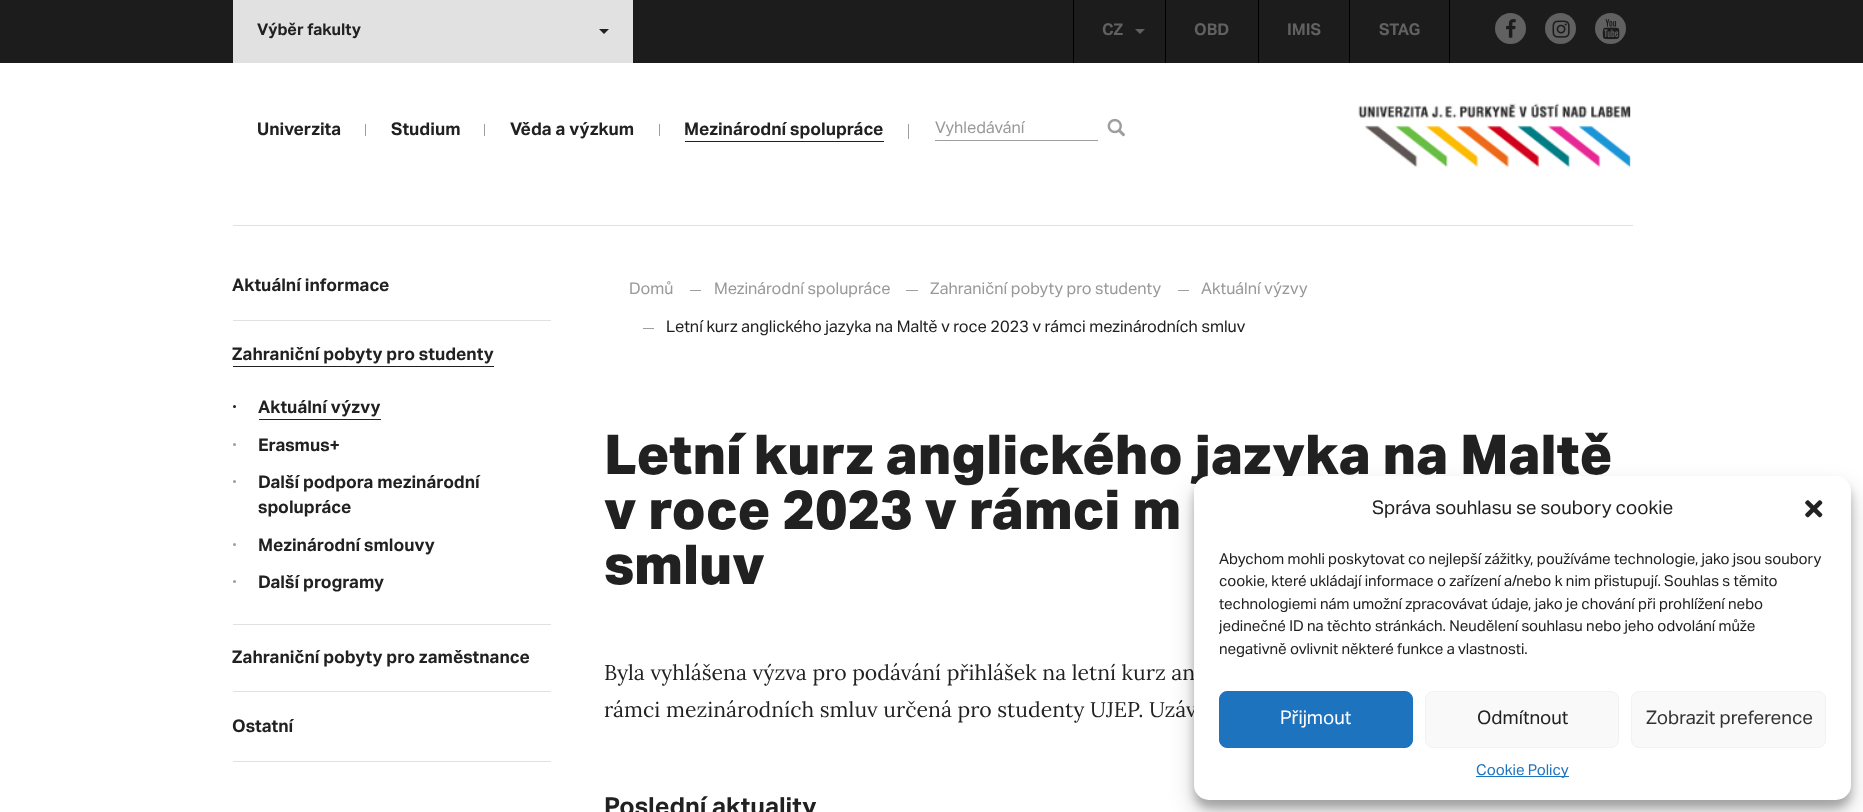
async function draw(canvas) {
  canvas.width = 1863;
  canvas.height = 812;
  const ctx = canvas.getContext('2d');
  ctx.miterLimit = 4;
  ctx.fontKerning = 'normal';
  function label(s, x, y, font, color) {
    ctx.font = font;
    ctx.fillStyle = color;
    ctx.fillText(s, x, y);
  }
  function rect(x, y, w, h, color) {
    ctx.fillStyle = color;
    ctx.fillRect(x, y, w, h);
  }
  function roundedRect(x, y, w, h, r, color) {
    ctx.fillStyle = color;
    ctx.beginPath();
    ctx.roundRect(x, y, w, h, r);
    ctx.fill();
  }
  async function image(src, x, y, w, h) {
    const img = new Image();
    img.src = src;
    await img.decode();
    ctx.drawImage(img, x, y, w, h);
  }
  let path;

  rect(0, 0, 1863, 812, '#fff');
  rect(0, 0, 1863, 63, '#1c1c1c');
  rect(233, 0, 400, 63, '#e1e1e1');
  label('Výběr fakulty', 257, 35, 'bold 16.25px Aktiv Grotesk', '#212121');
  path = new Path2D('M599 29H609L604 34Z');
  ctx.fill(path);
  rect(1165, 0, 1, 63, '#000');
  rect(1073, 0, 1, 63, '#000');
  label('CZ', 1102, 35, 'bold 16.25px Aktiv Grotesk', '#616161');
  path = new Path2D('M1135 29H1145L1140 34Z');
  ctx.fill(path);
  rect(1258, 0, 1, 63, '#000');
  label('OBD', 1194, 35, 'bold 16.25px Aktiv Grotesk', '#616161');
  rect(1349, 0, 1, 63, '#000');
  label('IMIS', 1287, 35, 'bold 16.25px Aktiv Grotesk', '#616161');
  rect(1449, 0, 1, 63, '#000');
  label('STAG', 1379, 35, 'bold 16.25px Aktiv Grotesk', '#616161');
  ctx.beginPath();
  ctx.arc(1510.5, 28.5, 15.5, 0, 2 * Math.PI);
  ctx.fill();
  await image('assets/img1.png', 1506, 19, 10, 19);
  ctx.beginPath();
  ctx.arc(1560.5, 28.5, 15.5, 0, 2 * Math.PI);
  ctx.fill();
  await image('assets/img2.png', 1552, 20, 18, 18);
  ctx.beginPath();
  ctx.arc(1610.5, 28.5, 15.5, 0, 2 * Math.PI);
  ctx.fill();
  await image('assets/img3.png', 1602, 19, 18, 21);
  rect(233, 225, 1400, 1, '#e1e1e1');
  label('Univerzita', 257, 135, 'bold 17.5px Aktiv Grotesk', '#212121');
  rect(365, 124, 1, 12, '#9e9e9e');
  label('Studium', 391, 135, 'bold 17.5px Aktiv Grotesk', '#212121');
  rect(484, 124, 1, 12, '#9e9e9e');
  label('Věda a výzkum', 510, 135, 'bold 17.5px Aktiv Grotesk', '#212121');
  rect(659, 124, 1, 12, '#9e9e9e');
  rect(685, 141, 199, 1, '#212121');
  label('Mezinárodní spolupráce', 684, 135, 'bold 17.5px Aktiv Grotesk', '#212121');
  rect(908, 124, 1, 15, '#9e9e9e');
  rect(935, 140, 163, 1, '#9e9e9e');
  label('Vyhledávání', 935, 133, '16.25px Aktiv Grotesk', '#999');
  await image('assets/img4.png', 1107, 118, 19, 19);
  await image('assets/img5.png', 1358, 103, 273, 65);
  rect(233, 320, 318, 1, '#e1e1e1');
  label('Aktuální informace', 232, 291, 'bold 17.5px Aktiv Grotesk', '#212121');
  label('Zahraniční pobyty pro studenty', 232, 360, 'bold 17.5px Aktiv Grotesk', '#212121');
  rect(233, 366, 261, 1, '#212121');
  ctx.beginPath();
  ctx.arc(234.5, 406.5, 1.5, 0, 2 * Math.PI);
  ctx.fill();
  label('Aktuální výzvy', 258, 413, 'bold 17.5px Aktiv Grotesk', '#212121');
  rect(259, 419, 122, 1, '#212121');
  ctx.fillStyle = '#9e9e9e';
  ctx.beginPath();
  ctx.arc(234.5, 444.5, 1.5, 0, 2 * Math.PI);
  ctx.fill();
  label('Erasmus+', 258, 451, 'bold 17.5px Aktiv Grotesk', '#212121');
  ctx.fillStyle = '#9e9e9e';
  ctx.beginPath();
  ctx.arc(234.5, 481.5, 1.5, 0, 2 * Math.PI);
  ctx.fill();
  label('Další podpora mezinárodní', 258, 488, 'bold 17.5px Aktiv Grotesk', '#212121');
  label('spolupráce', 258, 513, 'bold 17.5px Aktiv Grotesk', '#212121');
  ctx.fillStyle = '#9e9e9e';
  ctx.beginPath();
  ctx.arc(234.5, 544.5, 1.5, 0, 2 * Math.PI);
  ctx.fill();
  label('Mezinárodní smlouvy', 258, 551, 'bold 17.5px Aktiv Grotesk', '#212121');
  ctx.fillStyle = '#9e9e9e';
  ctx.beginPath();
  ctx.arc(234.5, 581.5, 1.5, 0, 2 * Math.PI);
  ctx.fill();
  label('Další programy', 258, 588, 'bold 17.5px Aktiv Grotesk', '#212121');
  rect(233, 624, 318, 1, '#e1e1e1');
  rect(233, 691, 318, 1, '#e1e1e1');
  label('Zahraniční pobyty pro zaměstnance', 232, 663, 'bold 17.5px Aktiv Grotesk', '#212121');
  rect(233, 761, 318, 1, '#e1e1e1');
  label('Ostatní', 232, 732, 'bold 17.5px Aktiv Grotesk', '#212121');
  label('Domů', 629, 294, '16.25px Aktiv Grotesk', '#999');
  rect(690, 290, 11, 1, '#9e9e9e');
  label('Mezinárodní spolupráce', 714, 294, '16.25px Aktiv Grotesk', '#999');
  rect(906, 290, 12, 1, '#9e9e9e');
  label('Zahraniční pobyty pro studenty', 930, 294, '16.25px Aktiv Grotesk', '#999');
  rect(1178, 290, 11, 1, '#9e9e9e');
  label('Aktuální výzvy', 1201, 294, '16.25px Aktiv Grotesk', '#999');
  rect(643, 328, 11, 1, '#9e9e9e');
  label('Letní kurz anglického jazyka na Maltě v roce 2023 v rámci mezinárodních smluv', 666, 332, '16.25px Aktiv Grotesk', '#212121');
  label('Letní kurz anglického jazyka na Maltě', 604, 474, '800 55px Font', '#212121');
  label('v roce 2023 v rámci m', 604, 529, '800 55px Font', '#212121');
  label('smluv', 604, 584, '800 55px Font', '#212121');
  label('Byla vyhlášena výzva pro podávání přihlášek na letní kurz an', 604, 680, '21.25px Lora', '#212121');
  label('rámci mezinárodních smluv určená pro studenty UJEP. Uzáv', 604, 717, '21.25px Lora', '#212121');
  label('Poslední aktuality', 604, 815, 'bold 25px Aktiv Grotesk', '#212121');
  ctx.fillStyle = '#0000003b';
  ctx.filter = 'blur(4px)';
  ctx.beginPath();
  ctx.roundRect(1194, 484, 657, 324, 15);
  ctx.fill();
  ctx.filter = 'none';
  ctx.fillStyle = '#00000030';
  ctx.filter = 'blur(12.5px)';
  ctx.beginPath();
  ctx.roundRect(1194, 489, 657, 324, 15);
  ctx.fill();
  ctx.filter = 'none';
  roundedRect(1194, 476, 657, 324, 15, '#fff');
  label('Správa souhlasu se soubory cookie', 1372, 514, '18.75px Aktiv Grotesk', '#212121');
  await image('assets/img6.png', 1805, 500, 18, 18);
  label('Abychom mohli poskytovat co nejlepší zážitky, používáme technologie, jako jsou soubory', 1219, 564, '15px Aktiv Grotesk', '#212121');
  label('cookie, které ukládají informace o zařízení a/nebo k nim přistupují. Souhlas s těmito', 1219, 586, '15px Aktiv Grotesk', '#212121');
  label('technologiemi nám umožní zpracovávat údaje, jako je chování při prohlížení nebo', 1219, 609, '15px Aktiv Grotesk', '#212121');
  ctx.save();
  ctx.beginPath();
  ctx.rect(1219, 548, 607, 118);
  ctx.clip();
  label('jedinečné ID na těchto stránkách. Neudělení souhlasu nebo jeho odvolání může', 1219, 631, '15px Aktiv Grotesk', '#212121');
  ctx.restore();
  label('negativně ovlivnit některé funkce a vlastnosti.', 1219, 654, '15px Aktiv Grotesk', '#212121');
  ctx.fillStyle = '#1e73be';
  ctx.beginPath();
  ctx.roundRect(1219.5, 691.5, 193, 56, 7.5);
  ctx.fill();
  ctx.strokeStyle = '#1e73be';
  ctx.stroke();
  label('Přijmout', 1280, 724, '18.75px Aktiv Grotesk', '#fff');
  ctx.fillStyle = '#f9f9f9';
  ctx.beginPath();
  ctx.roundRect(1425.5, 691.5, 193, 56, 7.5);
  ctx.fill();
  ctx.strokeStyle = '#f2f2f2';
  ctx.stroke();
  label('Odmítnout', 1477, 724, '18.75px Aktiv Grotesk', '#212121');
  ctx.fillStyle = '#f9f9f9';
  ctx.beginPath();
  ctx.roundRect(1631.5, 691.5, 194, 56, 7.5);
  ctx.fill();
  ctx.stroke();
  label('Zobrazit preference', 1646, 724, '18.75px Aktiv Grotesk', '#333');
  rect(1476, 776, 93, 1, '#1e73be');
  label('Cookie Policy', 1476, 775, '15px Aktiv Grotesk', '#1e73be');
}

draw(document.querySelector('canvas'));
